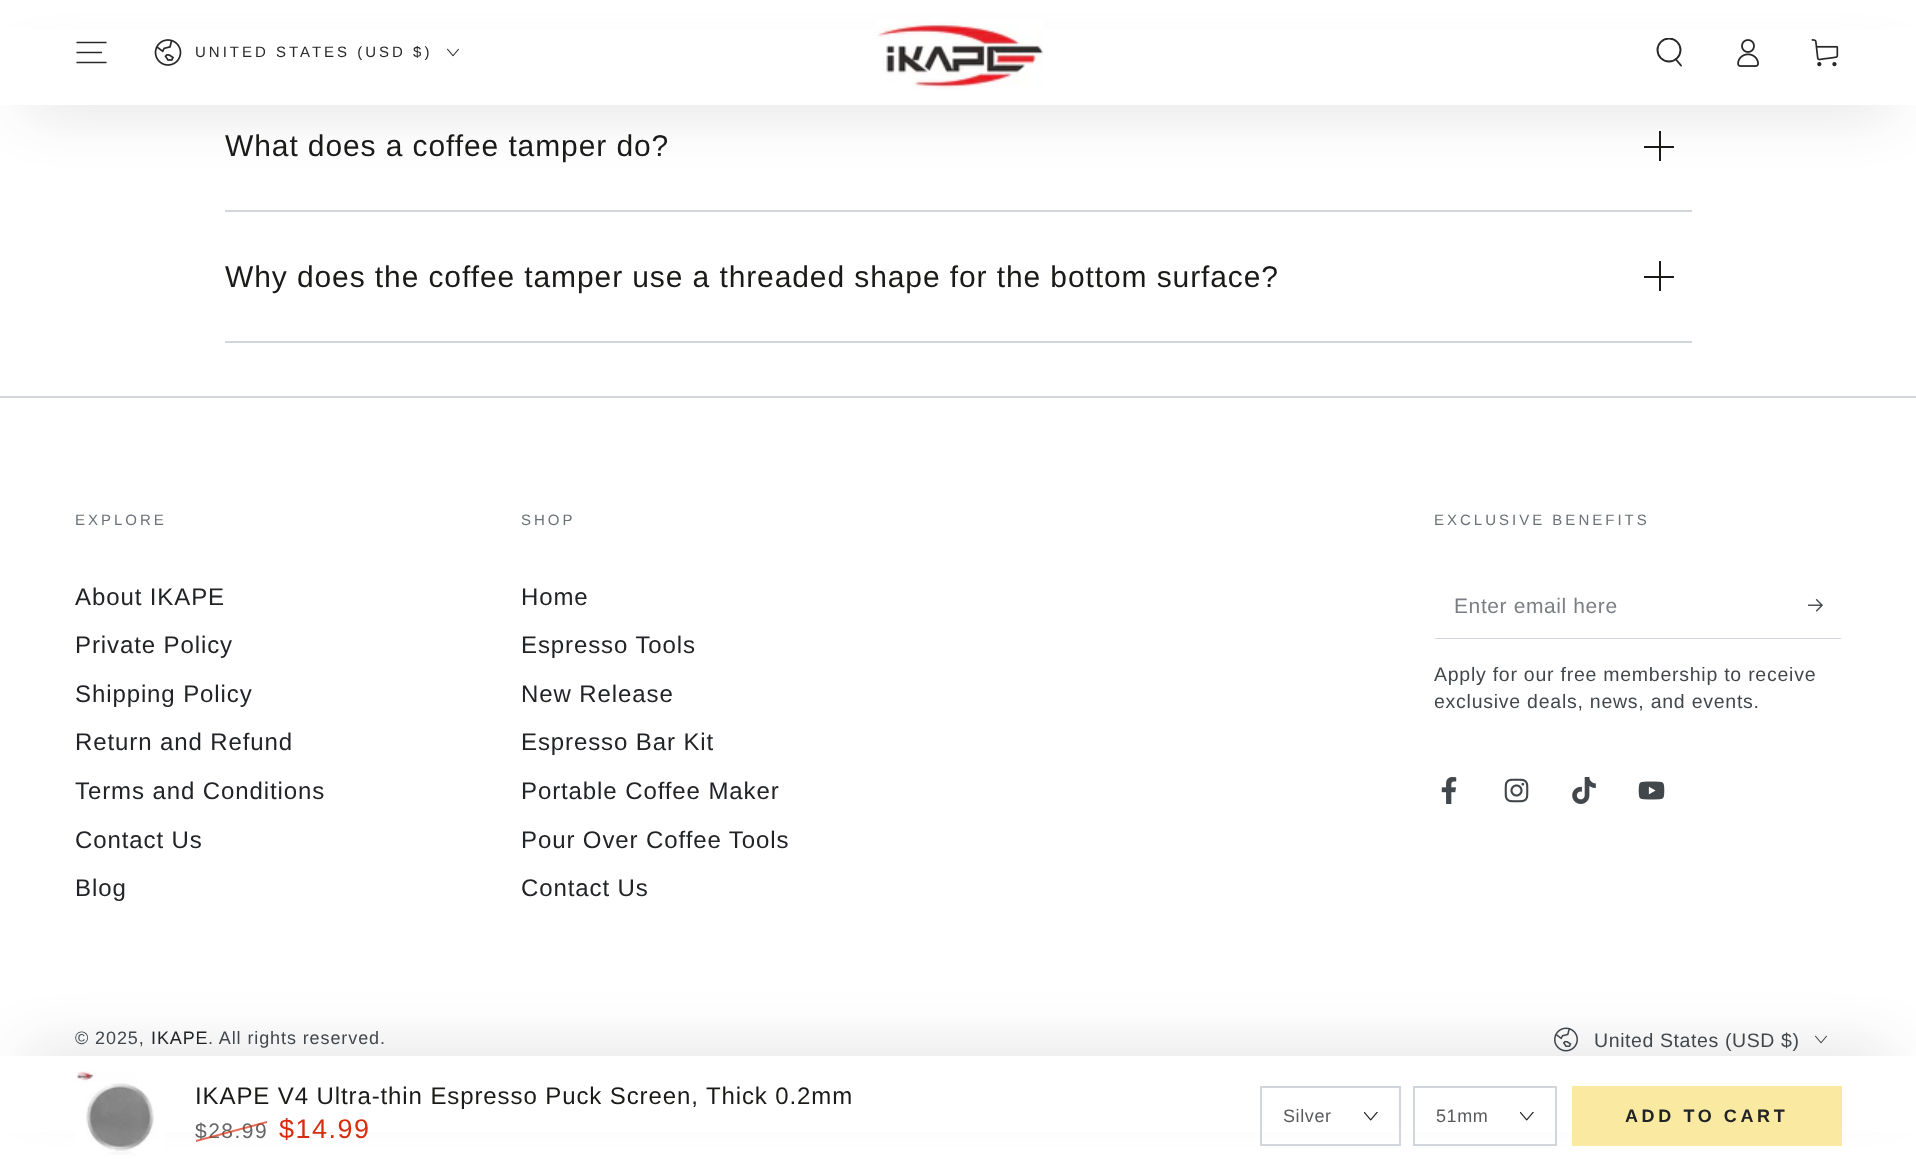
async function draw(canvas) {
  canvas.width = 1916;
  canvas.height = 1176;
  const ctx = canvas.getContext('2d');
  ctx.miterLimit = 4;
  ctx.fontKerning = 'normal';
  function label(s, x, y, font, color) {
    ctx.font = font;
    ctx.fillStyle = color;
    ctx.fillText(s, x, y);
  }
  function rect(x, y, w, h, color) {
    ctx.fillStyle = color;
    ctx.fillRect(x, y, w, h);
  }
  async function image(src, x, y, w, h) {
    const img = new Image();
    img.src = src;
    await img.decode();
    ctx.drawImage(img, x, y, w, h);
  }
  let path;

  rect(0, 0, 1916, 1176, '#fff');
  rect(1644, 146, 30, 2, '#1a1b18');
  rect(1659, 131, 2, 30, '#1a1b18');
  ctx.fillStyle = '#21232633';
  ctx.filter = 'blur(30px)';
  ctx.beginPath();
  ctx.roundRect(23, 75, 1872, 30, 15);
  ctx.fill();
  ctx.filter = 'none';
  rect(0, 29, 1916, 76, '#fff');
  await image('assets/img1.png', 875, 21, 168, 69);
  path = new Path2D('M76.5 62.5H106.5M76.5 52.5H102M76.5 42.5H106.5');
  ctx.strokeStyle = '#282828';
  ctx.lineWidth = 1.7;
  ctx.stroke(path);
  await image('assets/img2.png', 154, 39, 28, 27);
  ctx.letterSpacing = '3px';
  label('UNITED STATES (USD $)', 195, 57, '15px Liberation Sans', '#282828');
  await image('assets/img3.png', 447, 48, 12, 9);
  ctx.save();
  ctx.beginPath();
  ctx.rect(1655, 38, 30, 30);
  ctx.clip();
  ctx.beginPath();
  ctx.arc(1669, 50, 11.5, 0, 2 * Math.PI);
  ctx.lineWidth = 1.9;
  ctx.stroke();
  ctx.restore();
  path = new Path2D('M1676 59.5L1681 65.5');
  ctx.lineWidth = 1.9;
  ctx.lineCap = 'round';
  ctx.stroke(path);
  await image('assets/img4.png', 1737, 39, 22, 28);
  await image('assets/img5.png', 1811, 39, 28, 28);
  rect(225, 210, 1467, 2, '#d2d5d9');
  ctx.letterSpacing = '0.9px';
  label('What does a coffee tamper do?', 225, 156, '30px Liberation Sans', '#1a1b18');
  rect(225, 341, 1467, 2, '#d2d5d9');
  label('Why does the coffee tamper use a threaded shape for the bottom surface?', 225, 287, '30px Liberation Sans', '#1a1b18');
  rect(1644, 276, 30, 2, '#1a1b18');
  rect(1659, 261, 2, 30, '#1a1b18');
  await image('assets/img13.png', 1554, 1027, 24, 25);
  await image('assets/img14.png', 1815, 1035, 12, 9);
  ctx.fillStyle = '#21232633';
  ctx.filter = 'blur(30px)';
  ctx.beginPath();
  ctx.roundRect(23, 1056, 1872, 30, 15);
  ctx.fill();
  ctx.filter = 'none';
  rect(0, 1056, 1916, 76, '#fff');
  await image('assets/img6.png', 75, 1071, 90, 90);
  label('IKAPE V4 Ultra-thin Espresso Puck Screen, Thick 0.2mm', 195, 1104, '24px Liberation Sans', '#1a1b18');
  ctx.letterSpacing = '1.5px';
  label('$28.99', 195, 1138, '21px Liberation Sans', '#646567');
  ctx.fillStyle = '#d72c0db3';
  path = new Path2D('M196 1140L267 1121V1123L196 1142Z');
  ctx.fill(path);
  label('$14.99', 279, 1138, '27px Liberation Sans', '#d72c0d');
  ctx.strokeStyle = '#d2d5d9';
  ctx.lineWidth = 2;
  ctx.strokeRect(1261, 1087, 139, 58);
  ctx.letterSpacing = '0.6px';
  label('Silver', 1283, 1122, '18px Liberation Sans', '#595a5c');
  await image('assets/img7.png', 1364, 1112, 14, 9);
  ctx.strokeRect(1414, 1087, 142, 58);
  label('51mm', 1436, 1122, '18px Liberation Sans', '#595a5c');
  await image('assets/img7.png', 1520, 1112, 14, 9);
  rect(1572, 1086, 270, 60, '#faeaa1');
  ctx.letterSpacing = '3.6px';
  label('ADD TO CART', 1625, 1122, 'bold 18px Liberation Sans', '#212326');
  rect(0, 396, 1916, 2, '#d2d5d9');
  ctx.letterSpacing = '3px';
  label('EXPLORE', 75, 525, '15px Liberation Sans', '#6b7177');
  ctx.letterSpacing = '0.9px';
  label('About IKAPE', 75, 605, '24px Liberation Sans', '#212326');
  label('Private Policy', 75, 653, '24px Liberation Sans', '#212326');
  label('Shipping Policy', 75, 702, '24px Liberation Sans', '#212326');
  label('Return and Refund', 75, 750, '24px Liberation Sans', '#212326');
  label('Terms and Conditions', 75, 799, '24px Liberation Sans', '#212326');
  label('Contact Us', 75, 848, '24px Liberation Sans', '#212326');
  label('Blog', 75, 896, '24px Liberation Sans', '#212326');
  ctx.letterSpacing = '3px';
  label('SHOP', 521, 525, '15px Liberation Sans', '#6b7177');
  ctx.letterSpacing = '0.9px';
  label('Home', 521, 605, '24px Liberation Sans', '#212326');
  label('Espresso Tools', 521, 653, '24px Liberation Sans', '#212326');
  label('New Release', 521, 702, '24px Liberation Sans', '#212326');
  label('Espresso Bar Kit', 521, 750, '24px Liberation Sans', '#212326');
  label('Portable Coffee Maker', 521, 799, '24px Liberation Sans', '#212326');
  label('Pour Over Coffee Tools', 521, 848, '24px Liberation Sans', '#212326');
  label('Contact Us', 521, 896, '24px Liberation Sans', '#212326');
  ctx.letterSpacing = '3px';
  label('EXCLUSIVE BENEFITS', 1434, 525, '15px Liberation Sans', '#6b7177');
  ctx.fillStyle = '#d2d5d9';
  path = new Path2D('M1842 639H1434L1436 638H1840Z');
  ctx.fill(path);
  ctx.letterSpacing = '0.6px';
  label('Enter email here', 1454, 613, '21px Liberation Sans', '#7b7e82');
  await image('assets/img8.png', 1808, 599, 15, 13);
  ctx.letterSpacing = '0.75px';
  label('Apply for our free membership to receive', 1434, 681, '19.5px Liberation Sans', '#42474c');
  label('exclusive deals, news, and events.', 1434, 708, '19.5px Liberation Sans', '#42474c');
  await image('assets/img9.png', 1441, 777, 16, 27);
  await image('assets/img10.png', 1504, 778, 25, 25);
  await image('assets/img11.png', 1572, 777, 24, 27);
  await image('assets/img12.png', 1638, 781, 27, 19);
  ctx.letterSpacing = '0.9px';
  label('© 2025,', 75, 1044, '18px Liberation Sans', '#42474c');
  label('IKAPE', 151, 1044, '18px Liberation Sans', '#212326');
  label('. All rights reserved.', 208, 1044, '18px Liberation Sans', '#42474c');
  ctx.letterSpacing = '0.6px';
  label('United States (USD $)', 1594, 1047, '19.5px Liberation Sans', '#42474c');
}

draw(document.querySelector('canvas'));
